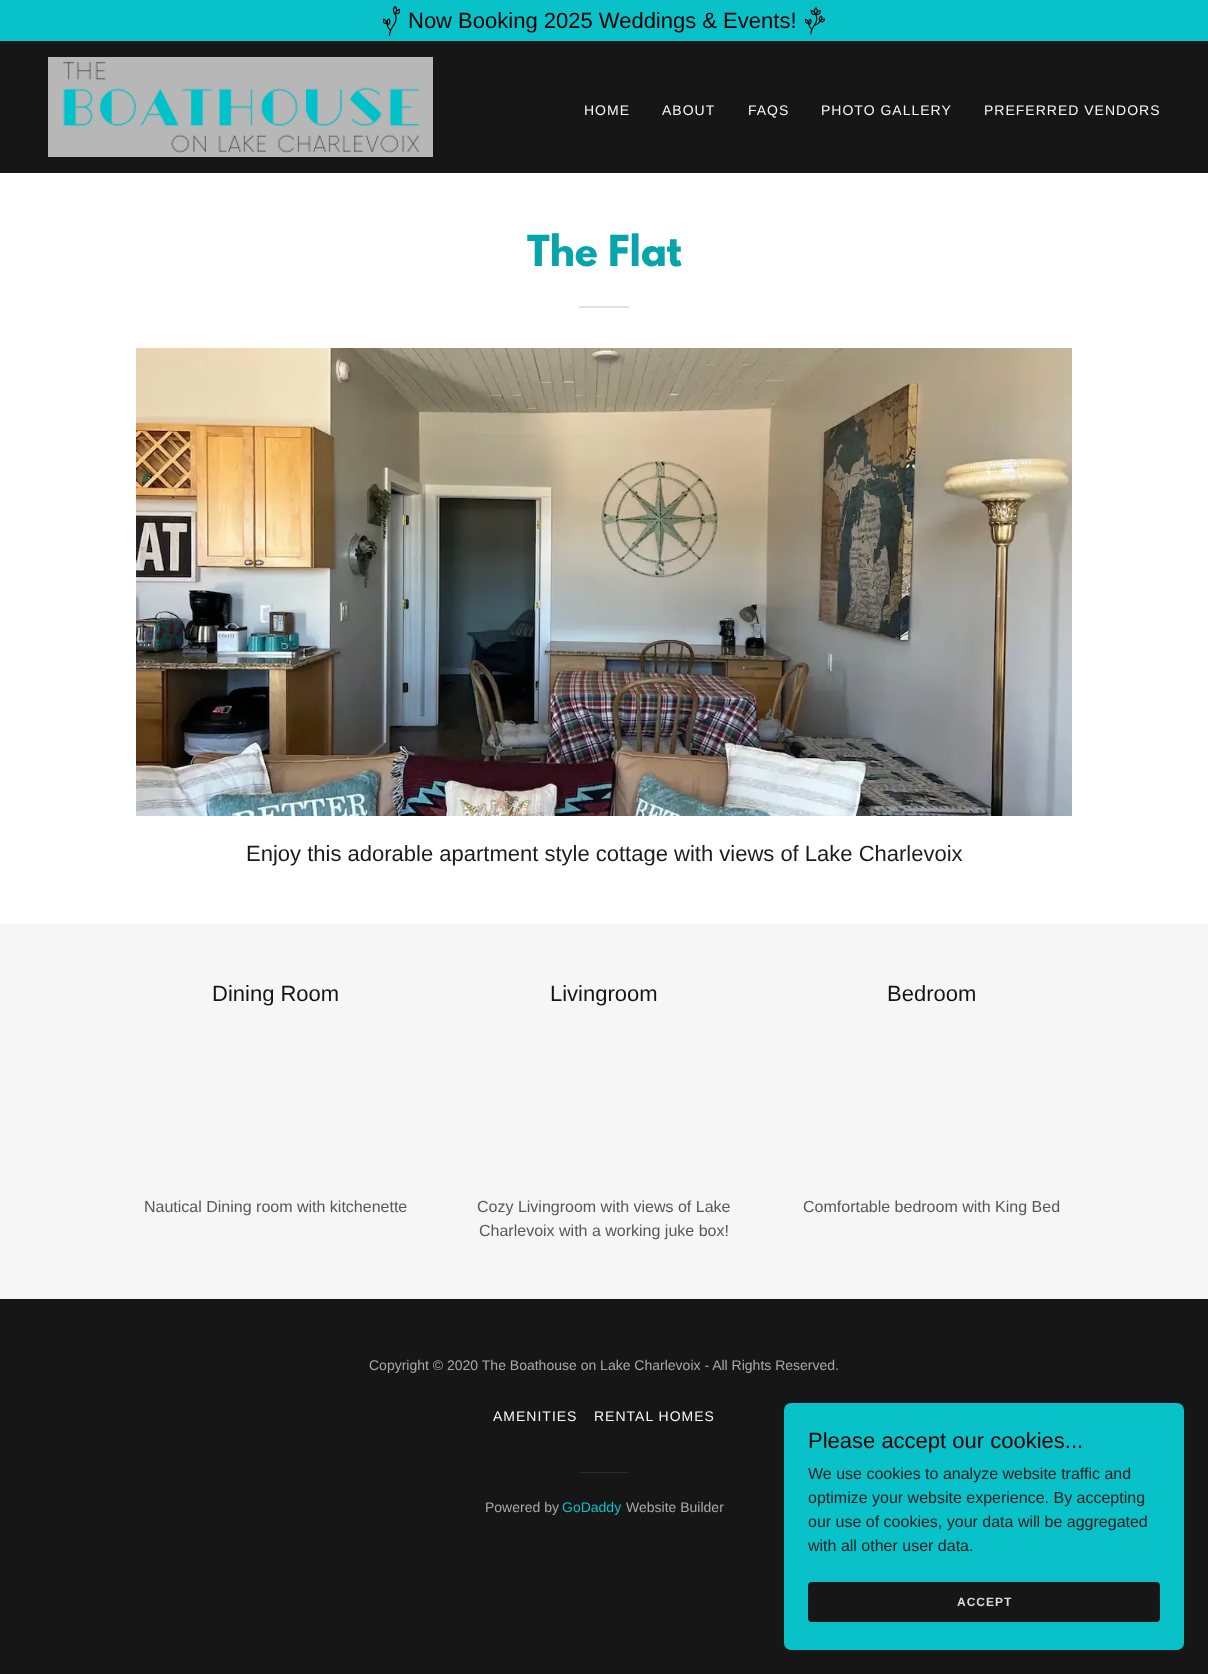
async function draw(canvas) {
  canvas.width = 1208;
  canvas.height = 1674;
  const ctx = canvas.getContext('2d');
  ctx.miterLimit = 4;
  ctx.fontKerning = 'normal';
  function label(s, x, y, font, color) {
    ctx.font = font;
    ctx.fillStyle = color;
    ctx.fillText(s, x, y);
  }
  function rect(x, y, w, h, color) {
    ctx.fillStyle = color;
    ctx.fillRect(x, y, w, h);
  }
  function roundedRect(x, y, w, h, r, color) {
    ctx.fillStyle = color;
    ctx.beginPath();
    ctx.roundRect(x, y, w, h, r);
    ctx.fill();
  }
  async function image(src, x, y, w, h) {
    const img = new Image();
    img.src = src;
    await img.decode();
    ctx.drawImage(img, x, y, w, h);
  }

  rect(0, 0, 1208, 1674, '#161616');
  rect(0, 0, 1208, 41, '#08c1c9');
  await image('assets/img1.png', 383, 6, 17, 30);
  label('Now Booking 2025 Weddings & Events!', 408, 28, '22px Liberation Sans', '#000');
  await image('assets/img2.png', 805, 7, 20, 28);
  await image('assets/img3.png', 48, 57, 385, 100);
  ctx.letterSpacing = '1px';
  label('HOME', 584, 115, '14px Liberation Sans', '#f7f7f7');
  label('ABOUT', 662, 115, '14px Liberation Sans', '#f7f7f7');
  label('FAQS', 748, 115, '14px Liberation Sans', '#f7f7f7');
  label('PHOTO GALLERY', 821, 115, '14px Liberation Sans', '#f7f7f7');
  label('PREFERRED VENDORS', 984, 115, '14px Liberation Sans', '#f7f7f7');
  rect(0, 173, 1208, 751, '#fff');
  ctx.letterSpacing = '0px';
  label('The Flat', 527, 266, 'bold 38px League Spartan', '#07a4ab');
  rect(579, 306, 50, 2, '#e2e2e2');
  await image('assets/img4.png', 136, 348, 936, 468);
  label('Enjoy this adorable apartment style cottage with views of Lake Charlevoix', 246, 861, '22px Liberation Sans', '#1b1b1b');
  rect(0, 924, 1208, 375, '#f6f6f6');
  label('Dining Room', 212, 1001, '22px Liberation Sans', '#151515');
  label('Nautical Dining room with kitchenette', 144, 1212, '16px Liberation Sans', '#575757');
  label('Livingroom', 550, 1001, '22px Liberation Sans', '#151515');
  label('Cozy Livingroom with views of Lake', 477, 1212, '16px Liberation Sans', '#575757');
  label('Charlevoix with a working juke box!', 479, 1236, '16px Liberation Sans', '#575757');
  label('Bedroom', 887, 1001, '22px Liberation Sans', '#151515');
  label('Comfortable bedroom with King Bed', 803, 1212, '16px Liberation Sans', '#575757');
  label('Copyright © 2020 The Boathouse on Lake Charlevoix - All Rights Reserved.', 369, 1370, '14px Liberation Sans', '#a9a9a9');
  ctx.letterSpacing = '1px';
  label('AMENITIES', 493, 1421, '14px Liberation Sans', '#f7f7f7');
  label('RENTAL HOMES', 594, 1421, '14px Liberation Sans', '#f7f7f7');
  rect(579, 1472, 50, 1, '#2a2a2a');
  ctx.letterSpacing = '0px';
  label('Powered by', 485, 1512, '14px Liberation Sans', '#a9a9a9');
  label('GoDaddy', 562, 1512, '14px Liberation Sans', '#08c1c9');
  label('Website Builder', 626, 1512, '14px Liberation Sans', '#a9a9a9');
  roundedRect(784, 1403, 400, 247, 7, '#08c1c9');
  label('Please accept our cookies...', 808, 1448, '22px Liberation Sans', '#000');
  label('We use cookies to analyze website traffic and', 808, 1479, '16px Liberation Sans', '#1b1b1b');
  label('optimize your website experience. By accepting', 808, 1503, '16px Liberation Sans', '#1b1b1b');
  label('our use of cookies, your data will be aggregated', 808, 1527, '16px Liberation Sans', '#1b1b1b');
  label('with all other user data.', 808, 1551, '16px Liberation Sans', '#1b1b1b');
  roundedRect(808, 1582, 352, 40, 4, '#161616');
  ctx.letterSpacing = '1px';
  label('ACCEPT', 957, 1606, 'bold 12px Liberation Sans', '#dbdbdb');
}

draw(document.querySelector('canvas'));
